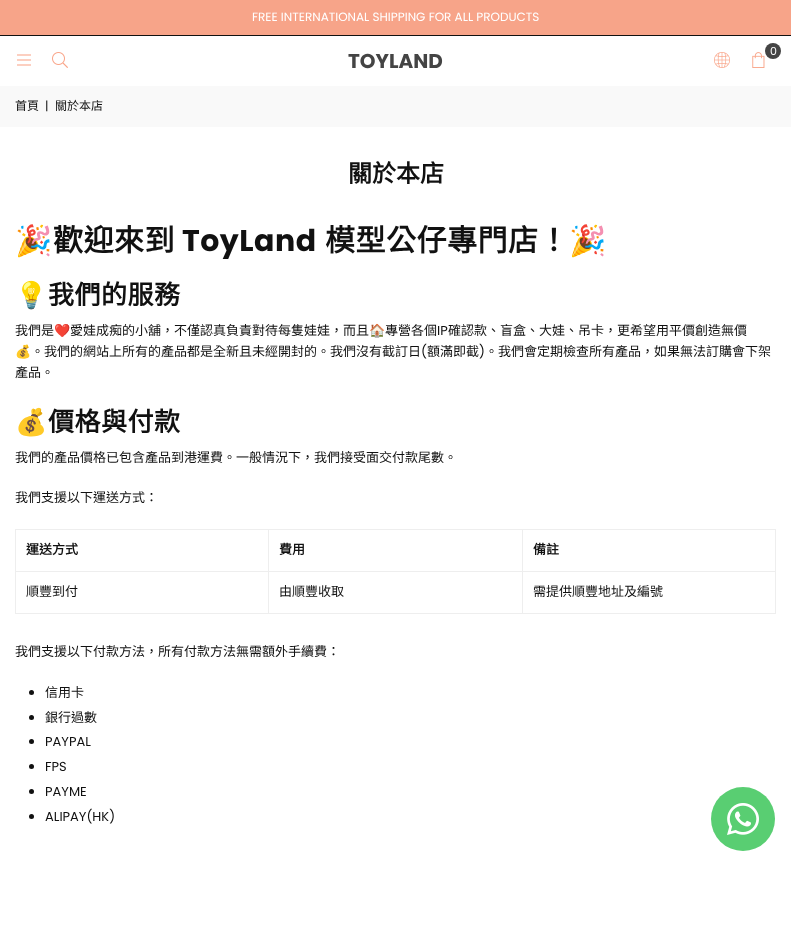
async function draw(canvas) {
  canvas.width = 791;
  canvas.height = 936;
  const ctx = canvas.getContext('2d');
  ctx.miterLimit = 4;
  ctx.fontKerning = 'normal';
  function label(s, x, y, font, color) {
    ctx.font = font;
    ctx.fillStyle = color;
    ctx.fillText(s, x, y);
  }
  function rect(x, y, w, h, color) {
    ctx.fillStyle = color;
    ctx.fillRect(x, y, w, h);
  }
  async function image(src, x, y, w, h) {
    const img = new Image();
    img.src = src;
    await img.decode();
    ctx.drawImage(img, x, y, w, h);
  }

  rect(0, 0, 791, 936, '#fff');
  rect(0, 0, 791, 35, '#f7a489');
  rect(0, 35, 791, 1, '#111');
  label('FREE INTERNATIONAL SHIPPING FOR ALL PRODUCTS', 252, 21, '12px Poppins', '#fff');
  ctx.fillStyle = '#444';
  ctx.beginPath();
  ctx.arc(773, 51, 8, 0, 2 * Math.PI);
  ctx.fill();
  label('0', 770, 55, '11px Poppins', '#fff');
  await image('assets/img1.png', 752, 52, 13, 16);
  await image('assets/img2.png', 714, 52, 16, 16);
  await image('assets/img3.png', 17, 54, 14, 12);
  await image('assets/img4.png', 52, 52, 16, 16);
  label('TOYLAND', 348, 68, 'bold 20px Poppins', '#444');
  rect(0, 86, 791, 41, '#f9f9f9');
  label('首頁', 15, 110, '12px Noto Sans CJK TC', '#111');
  label('|', 45, 110, '12px Poppins', '#111');
  label('關於本店', 55, 110, '12px Noto Sans CJK TC', '#111');
  label('關於本店', 348, 182, 'bold 24px Noto Sans CJK TC', '#111');
  ctx.letterSpacing = '0.5px';
  label('🎉', 15, 251, 'bold 30px Noto Color Emoji', '#111');
  label('歡迎來到', 53, 251, 'bold 30px Noto Sans CJK TC', '#111');
  label('ToyLand', 182, 251, 'bold 30px Poppins', '#111');
  label('模型公仔專門店！', 325, 251, 'bold 30px Noto Sans CJK TC', '#111');
  label('🎉', 569, 251, 'bold 30px Noto Color Emoji', '#111');
  label('💡', 15, 304, 'bold 26px Noto Color Emoji', '#111');
  label('我們的服務', 48, 304, 'bold 26px Noto Sans CJK TC', '#111');
  ctx.letterSpacing = '0px';
  label('我們是', 15, 335, '13px Noto Sans CJK TC', '#111');
  label('❤️', 54, 335, '13px Noto Color Emoji', '#111');
  label('愛娃成痴的小舖，不僅認真負責對待每隻娃娃，而且', 70, 335, '13px Noto Sans CJK TC', '#111');
  label('🏠', 369, 335, '13px Noto Color Emoji', '#111');
  label('專營各個', 385, 335, '13px Noto Sans CJK TC', '#111');
  label('IP', 437, 335, '13px Poppins', '#111');
  label('確認款、盲盒、大娃、吊卡，更希望用平價創造無價', 448, 335, '13px Noto Sans CJK TC', '#111');
  label('💰', 15, 356, '13px Noto Color Emoji', '#111');
  label('。我們的網站上所有的產品都是全新且未經開封的。我們沒有截訂日', 31, 356, '13px Noto Sans CJK TC', '#111');
  label('(', 421, 356, '13px Poppins', '#111');
  label('額滿即截', 427, 356, '13px Noto Sans CJK TC', '#111');
  label(')', 479, 356, '13px Poppins', '#111');
  label('。我們會定期檢查所有產品，如果無法訂購會下架', 485, 356, '13px Noto Sans CJK TC', '#111');
  label('產品。', 15, 377, '13px Noto Sans CJK TC', '#111');
  ctx.letterSpacing = '0.5px';
  label('💰', 15, 431, 'bold 26px Noto Color Emoji', '#111');
  label('價格與付款', 48, 431, 'bold 26px Noto Sans CJK TC', '#111');
  ctx.letterSpacing = '0px';
  label('我們的產品價格已包含產品到港運費。一般情況下，我們接受面交付款尾數。', 15, 462, '13px Noto Sans CJK TC', '#111');
  label('我們支援以下運送方式：', 15, 502, '13px Noto Sans CJK TC', '#111');
  rect(522, 529, 254, 1, '#eee');
  rect(522, 571, 254, 1, '#eee');
  rect(775, 571, 1, 43, '#eee');
  rect(522, 613, 254, 1, '#eee');
  rect(522, 571, 1, 43, '#eee');
  rect(268, 571, 255, 1, '#eee');
  rect(522, 529, 1, 43, '#eee');
  rect(268, 529, 255, 1, '#eee');
  rect(268, 613, 255, 1, '#eee');
  rect(268, 571, 1, 43, '#eee');
  rect(15, 571, 254, 1, '#eee');
  rect(268, 529, 1, 43, '#eee');
  rect(15, 529, 254, 1, '#eee');
  rect(15, 613, 254, 1, '#eee');
  rect(15, 571, 1, 43, '#eee');
  rect(15, 529, 1, 43, '#eee');
  label('運送方式', 26, 554, 'bold 13px Noto Sans CJK TC', '#111');
  label('費用', 279, 554, 'bold 13px Noto Sans CJK TC', '#111');
  rect(775, 529, 1, 43, '#eee');
  label('備註', 533, 554, 'bold 13px Noto Sans CJK TC', '#111');
  label('順豐到付', 26, 596, '13px Noto Sans CJK TC', '#111');
  label('由順豐收取', 279, 596, '13px Noto Sans CJK TC', '#111');
  label('需提供順豐地址及編號', 533, 596, '13px Noto Sans CJK TC', '#111');
  label('我們支援以下付款方法，所有付款方法無需額外手續費：', 15, 656, '13px Noto Sans CJK TC', '#111');
  ctx.beginPath();
  ctx.arc(31.5, 692.5, 2.5, 0, 2 * Math.PI);
  ctx.fill();
  label('信用卡', 45, 697, '13px Noto Sans CJK TC', '#111');
  ctx.beginPath();
  ctx.arc(31.5, 717.5, 2.5, 0, 2 * Math.PI);
  ctx.fill();
  label('銀行過數', 45, 722, '13px Noto Sans CJK TC', '#111');
  ctx.beginPath();
  ctx.arc(31.5, 741.5, 2.5, 0, 2 * Math.PI);
  ctx.fill();
  label('PAYPAL', 45, 746, '13px Poppins', '#111');
  ctx.beginPath();
  ctx.arc(31.5, 766.5, 2.5, 0, 2 * Math.PI);
  ctx.fill();
  label('FPS', 45, 771, '13px Poppins', '#111');
  ctx.beginPath();
  ctx.arc(31.5, 791.5, 2.5, 0, 2 * Math.PI);
  ctx.fill();
  label('PAYME', 45, 796, '13px Poppins', '#111');
  ctx.beginPath();
  ctx.arc(31.5, 816.5, 2.5, 0, 2 * Math.PI);
  ctx.fill();
  label('ALIPAY(HK)', 45, 821, '13px Poppins', '#111');
  ctx.fillStyle = '#59ce72';
  ctx.beginPath();
  ctx.arc(743, 819, 32, 0, 2 * Math.PI);
  ctx.fill();
  await image('assets/img5.png', 727, 803, 32, 32);
}

draw(document.querySelector('canvas'));
